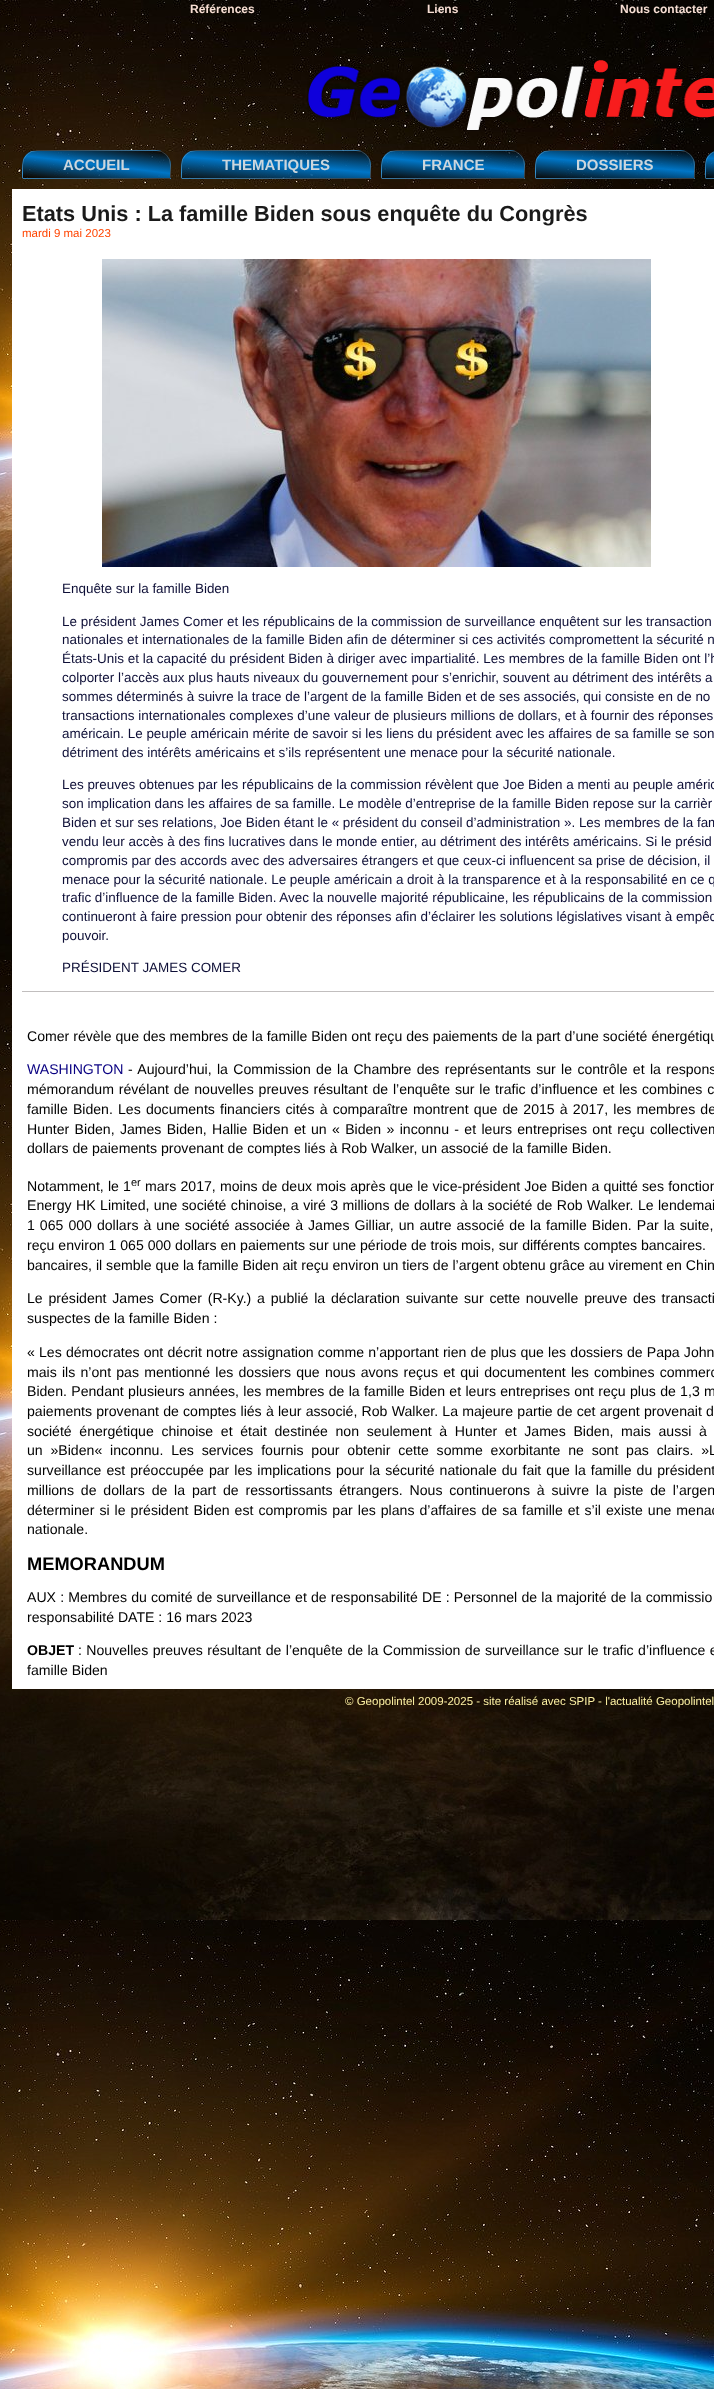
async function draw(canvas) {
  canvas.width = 714;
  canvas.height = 2389;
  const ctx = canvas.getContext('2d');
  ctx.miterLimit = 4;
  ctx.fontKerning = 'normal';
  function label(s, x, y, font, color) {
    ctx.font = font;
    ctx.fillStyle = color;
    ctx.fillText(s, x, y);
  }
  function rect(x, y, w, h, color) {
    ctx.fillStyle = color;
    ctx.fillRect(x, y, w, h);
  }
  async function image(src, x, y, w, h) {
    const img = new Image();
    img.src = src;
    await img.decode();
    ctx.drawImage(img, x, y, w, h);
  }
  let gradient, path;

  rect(0, 0, 714, 2389, '#fff');
  await image('assets/img1.png', 0, 0, 714, 2389);
  label('Références', 190, 13, 'bold 12px Liberation Sans', '#f7ded3');
  label('Liens', 427, 13, 'bold 12px Liberation Sans', '#f7ded3');
  label('Nous contacter', 620, 13, 'bold 12px Liberation Sans', '#f7ded3');
  await image('assets/img2.png', 307, 60, 407, 71);
  ctx.fillStyle = '#000000b5';
  ctx.beginPath();
  ctx.roundRect(22, 150, 149, 29, [15, 15, 0, 0]);
  ctx.fill();
  ctx.save();
  ctx.beginPath();
  ctx.roundRect(22, 150, 149, 29, [15, 15, 0, 0]);
  ctx.clip();
  gradient = ctx.createLinearGradient(94, 158, 99, 117);
  gradient.addColorStop(0, '#0076c700');
  gradient.addColorStop(0.5, '#0076c7');
  gradient.addColorStop(1, '#0076c700');
  ctx.fillStyle = gradient;
  ctx.fillRect(36, 150, 125, 1);
  gradient = ctx.createLinearGradient(-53, 185, -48, 144);
  gradient.addColorStop(0, '#0076c700');
  gradient.addColorStop(0.5, '#0076c7');
  gradient.addColorStop(1, '#0076c700');
  ctx.fillStyle = gradient;
  ctx.fillRect(22, 160, 1, 18);
  gradient = ctx.createLinearGradient(94, 185, 99, 144);
  gradient.addColorStop(0, '#0076c700');
  gradient.addColorStop(0.5, '#0076c7');
  gradient.addColorStop(1, '#0076c700');
  ctx.fillStyle = gradient;
  ctx.fillRect(23, 151, 147, 27);
  gradient = ctx.createLinearGradient(241, 185, 246, 144);
  gradient.addColorStop(0, '#0076c700');
  gradient.addColorStop(0.5, '#0076c7');
  gradient.addColorStop(1, '#0076c700');
  ctx.fillStyle = gradient;
  ctx.fillRect(170, 160, 1, 18);
  ctx.restore();
  gradient = ctx.createLinearGradient(94, 212, 99, 171);
  gradient.addColorStop(0, '#0076c700');
  gradient.addColorStop(0.5, '#0076c7');
  gradient.addColorStop(1, '#0076c700');
  ctx.fillStyle = gradient;
  ctx.fillRect(23, 178, 134, 1);
  gradient = ctx.createLinearGradient(241, 212, 246, 171);
  gradient.addColorStop(0, '#0e0902');
  gradient.addColorStop(0.5, '#0076c7');
  gradient.addColorStop(1, '#0e0902');
  ctx.fillStyle = gradient;
  ctx.fillRect(170, 178, 1, 1);
  ctx.beginPath();
  ctx.roundRect(22.5, 150.5, 148, 28, [14.5, 14.5, 0, 0]);
  ctx.strokeStyle = '#ffffff33';
  ctx.stroke();
  label('ACCUEIL', 63, 170, 'bold 15px Liberation Sans', '#cbd6dd');
  ctx.fillStyle = '#000000b5';
  ctx.beginPath();
  ctx.roundRect(181, 150, 190, 29, [15, 15, 0, 0]);
  ctx.fill();
  ctx.save();
  ctx.beginPath();
  ctx.roundRect(181, 150, 190, 29, [15, 15, 0, 0]);
  ctx.clip();
  gradient = ctx.createLinearGradient(274, 161, 278, 114);
  gradient.addColorStop(0, '#0076c700');
  gradient.addColorStop(0.5, '#0076c7');
  gradient.addColorStop(1, '#0076c700');
  ctx.fillStyle = gradient;
  ctx.fillRect(191, 150, 170, 1);
  gradient = ctx.createLinearGradient(86, 188, 90, 141);
  gradient.addColorStop(0, '#0076c700');
  gradient.addColorStop(0.5, '#0076c7');
  gradient.addColorStop(1, '#0076c700');
  ctx.fillStyle = gradient;
  ctx.fillRect(181, 160, 1, 18);
  gradient = ctx.createLinearGradient(274, 188, 278, 141);
  gradient.addColorStop(0, '#0076c700');
  gradient.addColorStop(0.5, '#0076c7');
  gradient.addColorStop(1, '#0076c700');
  ctx.fillStyle = gradient;
  ctx.fillRect(182, 151, 188, 27);
  gradient = ctx.createLinearGradient(462, 188, 466, 141);
  gradient.addColorStop(0, '#0076c700');
  gradient.addColorStop(0.5, '#0076c7');
  gradient.addColorStop(1, '#0076c700');
  ctx.fillStyle = gradient;
  ctx.fillRect(370, 160, 1, 18);
  ctx.restore();
  gradient = ctx.createLinearGradient(86, 215, 90, 168);
  gradient.addColorStop(0, '#0e0902');
  gradient.addColorStop(0.5, '#0076c7');
  gradient.addColorStop(1, '#0e0902');
  ctx.fillStyle = gradient;
  ctx.fillRect(181, 178, 1, 1);
  gradient = ctx.createLinearGradient(274, 215, 278, 168);
  gradient.addColorStop(0, '#0076c700');
  gradient.addColorStop(0.5, '#0076c7');
  gradient.addColorStop(1, '#0076c700');
  ctx.fillStyle = gradient;
  ctx.fillRect(182, 178, 188, 1);
  gradient = ctx.createLinearGradient(462, 215, 466, 168);
  gradient.addColorStop(0, '#0c0703');
  gradient.addColorStop(0.5, '#0076c7');
  gradient.addColorStop(1, '#0c0703');
  ctx.fillStyle = gradient;
  ctx.fillRect(370, 178, 1, 1);
  ctx.beginPath();
  ctx.roundRect(181.5, 150.5, 189, 28, [14.5, 14.5, 0, 0]);
  ctx.stroke();
  label('THEMATIQUES', 222, 170, 'bold 15px Liberation Sans', '#cbd6dd');
  ctx.fillStyle = '#000000b5';
  ctx.beginPath();
  ctx.roundRect(381, 150, 144, 29, [15, 15, 0, 0]);
  ctx.fill();
  ctx.save();
  ctx.beginPath();
  ctx.roundRect(381, 150, 144, 29, [15, 15, 0, 0]);
  ctx.clip();
  gradient = ctx.createLinearGradient(451, 158, 455, 117);
  gradient.addColorStop(0, '#0076c700');
  gradient.addColorStop(0.5, '#0076c7');
  gradient.addColorStop(1, '#0076c700');
  ctx.fillStyle = gradient;
  ctx.fillRect(391, 150, 124, 1);
  gradient = ctx.createLinearGradient(309, 185, 313, 144);
  gradient.addColorStop(0, '#0076c700');
  gradient.addColorStop(0.5, '#0076c7');
  gradient.addColorStop(1, '#0076c700');
  ctx.fillStyle = gradient;
  ctx.fillRect(381, 160, 1, 18);
  gradient = ctx.createLinearGradient(451, 185, 455, 144);
  gradient.addColorStop(0, '#0076c700');
  gradient.addColorStop(0.5, '#0076c7');
  gradient.addColorStop(1, '#0076c700');
  ctx.fillStyle = gradient;
  ctx.fillRect(382, 151, 142, 27);
  gradient = ctx.createLinearGradient(593, 185, 597, 144);
  gradient.addColorStop(0, '#0076c700');
  gradient.addColorStop(0.5, '#0076c7');
  gradient.addColorStop(1, '#0076c700');
  ctx.fillStyle = gradient;
  ctx.fillRect(524, 160, 1, 18);
  ctx.restore();
  gradient = ctx.createLinearGradient(309, 212, 313, 171);
  gradient.addColorStop(0, '#0a0601');
  gradient.addColorStop(0.5, '#0076c7');
  gradient.addColorStop(1, '#0a0601');
  ctx.fillStyle = gradient;
  ctx.fillRect(381, 178, 1, 1);
  gradient = ctx.createLinearGradient(451, 212, 455, 171);
  gradient.addColorStop(0, '#0076c700');
  gradient.addColorStop(0.5, '#0076c7');
  gradient.addColorStop(1, '#0076c700');
  ctx.fillStyle = gradient;
  ctx.fillRect(382, 178, 142, 1);
  gradient = ctx.createLinearGradient(593, 212, 597, 171);
  gradient.addColorStop(0, '#0a0601');
  gradient.addColorStop(0.5, '#0076c7');
  gradient.addColorStop(1, '#0a0601');
  ctx.fillStyle = gradient;
  ctx.fillRect(524, 178, 1, 1);
  ctx.beginPath();
  ctx.roundRect(381.5, 150.5, 143, 28, [14.5, 14.5, 0, 0]);
  ctx.stroke();
  label('FRANCE', 422, 170, 'bold 15px Liberation Sans', '#cbd6dd');
  ctx.fillStyle = '#000000b5';
  ctx.beginPath();
  ctx.roundRect(535, 150, 160, 29, [15, 15, 0, 0]);
  ctx.fill();
  ctx.save();
  ctx.beginPath();
  ctx.roundRect(535, 150, 160, 29, [15, 15, 0, 0]);
  ctx.clip();
  gradient = ctx.createLinearGradient(613, 159, 617, 116);
  gradient.addColorStop(0, '#0076c700');
  gradient.addColorStop(0.5, '#0076c7');
  gradient.addColorStop(1, '#0076c700');
  ctx.fillStyle = gradient;
  ctx.fillRect(545, 150, 140, 1);
  gradient = ctx.createLinearGradient(455, 186, 459, 143);
  gradient.addColorStop(0, '#0076c700');
  gradient.addColorStop(0.5, '#0076c7');
  gradient.addColorStop(1, '#0076c700');
  ctx.fillStyle = gradient;
  ctx.fillRect(535, 160, 1, 18);
  gradient = ctx.createLinearGradient(613, 186, 617, 143);
  gradient.addColorStop(0, '#0076c700');
  gradient.addColorStop(0.5, '#0076c7');
  gradient.addColorStop(1, '#0076c700');
  ctx.fillStyle = gradient;
  ctx.fillRect(536, 151, 158, 27);
  gradient = ctx.createLinearGradient(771, 186, 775, 143);
  gradient.addColorStop(0, '#0076c700');
  gradient.addColorStop(0.5, '#0076c7');
  gradient.addColorStop(1, '#0076c700');
  ctx.fillStyle = gradient;
  ctx.fillRect(694, 160, 1, 18);
  ctx.restore();
  gradient = ctx.createLinearGradient(455, 213, 459, 170);
  gradient.addColorStop(0, '#0a0501');
  gradient.addColorStop(0.5, '#0076c7');
  gradient.addColorStop(1, '#0a0501');
  ctx.fillStyle = gradient;
  ctx.fillRect(535, 178, 1, 1);
  gradient = ctx.createLinearGradient(613, 213, 617, 170);
  gradient.addColorStop(0, '#0076c700');
  gradient.addColorStop(0.5, '#0076c7');
  gradient.addColorStop(1, '#0076c700');
  ctx.fillStyle = gradient;
  ctx.fillRect(536, 178, 158, 1);
  gradient = ctx.createLinearGradient(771, 213, 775, 170);
  gradient.addColorStop(0, '#030200');
  gradient.addColorStop(0.5, '#0076c7');
  gradient.addColorStop(1, '#030200');
  ctx.fillStyle = gradient;
  ctx.fillRect(694, 178, 1, 1);
  ctx.beginPath();
  ctx.roundRect(535.5, 150.5, 159, 28, [14.5, 14.5, 0, 0]);
  ctx.stroke();
  label('DOSSIERS', 576, 170, 'bold 15px Liberation Sans', '#cbd6dd');
  ctx.fillStyle = '#000000b5';
  path = new Path2D('M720 150H714C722.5 150 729 156.5 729 165V179H705V165C705 156.5 711.5 150 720 150Z');
  ctx.fill(path);
  ctx.save();
  path = new Path2D('M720 150H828C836.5 150 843 156.5 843 165V179H705V165C705 156.5 711.5 150 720 150Z');
  ctx.clip(path);
  gradient = ctx.createLinearGradient(636, 185, 640, 144);
  gradient.addColorStop(0, '#0076c700');
  gradient.addColorStop(0.5, '#0076c7');
  gradient.addColorStop(1, '#0076c700');
  ctx.fillStyle = gradient;
  ctx.fillRect(705, 160, 1, 18);
  gradient = ctx.createLinearGradient(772, 185, 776, 144);
  gradient.addColorStop(0, '#0076c700');
  gradient.addColorStop(0.5, '#0076c7');
  gradient.addColorStop(1, '#0076c700');
  ctx.fillStyle = gradient;
  ctx.fillRect(706, 151, 8, 27);
  ctx.restore();
  gradient = ctx.createLinearGradient(636, 212, 640, 171);
  gradient.addColorStop(0, '#030200');
  gradient.addColorStop(0.5, '#0076c7');
  gradient.addColorStop(1, '#030200');
  ctx.fillStyle = gradient;
  ctx.fillRect(705, 178, 1, 1);
  gradient = ctx.createLinearGradient(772, 212, 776, 171);
  gradient.addColorStop(0, '#040201');
  gradient.addColorStop(0.5, '#0076c7');
  gradient.addColorStop(1, '#040201');
  ctx.fillStyle = gradient;
  ctx.fillRect(706, 178, 8, 1);
  path = new Path2D('M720 150.5H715C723 150.5 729.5 157 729.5 165V178.5H705.5V165C705.5 157 712 150.5 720 150.5Z');
  ctx.stroke(path);
  rect(12, 189, 702, 1500, '#fff');
  label('Etats Unis : La famille Biden sous enquête du Congrès', 22, 221, 'bold 21.75px Liberation Sans', '#1a1a1a');
  label('mardi 9 mai 2023', 22, 237, '11.5px Liberation Sans', '#f40');
  rect(22, 991, 692, 1, '#c1bebe');
  await image('assets/img3.png', 102, 259, 549, 308);
  label('Enquête sur la famille Biden', 62, 593, '13.45px Liberation Sans', '#0e0f37');
  label('Le président James Comer et les républicains de la commission de surveillance enquêtent sur les transaction', 62, 626, '13.45px Liberation Sans', '#0e0f37');
  label('nationales et internationales de la famille Biden afin de déterminer si ces activités compromettent la sécurité n', 62, 644, '13.45px Liberation Sans', '#0e0f37');
  label('États-Unis et la capacité du président Biden à diriger avec impartialité. Les membres de la famille Biden ont l’h', 62, 663, '13.45px Liberation Sans', '#0e0f37');
  label('colporter l’accès aux plus hauts niveaux du gouvernement pour s’enrichir, souvent au détriment des intérêts a', 62, 682, '13.45px Liberation Sans', '#0e0f37');
  label('sommes déterminés à suivre la trace de l’argent de la famille Biden et de ses associés, qui consiste en de no', 62, 701, '13.45px Liberation Sans', '#0e0f37');
  label('transactions internationales complexes d’une valeur de plusieurs millions de dollars, et à fournir des réponses', 62, 720, '13.45px Liberation Sans', '#0e0f37');
  label('américain. Le peuple américain mérite de savoir si les liens du président avec les affaires de sa famille se son', 62, 738, '13.45px Liberation Sans', '#0e0f37');
  label('détriment des intérêts américains et s’ils représentent une menace pour la sécurité nationale.', 62, 757, '13.45px Liberation Sans', '#0e0f37');
  label('Les preuves obtenues par les républicains de la commission révèlent que Joe Biden a menti au peuple améric', 62, 789, '13.45px Liberation Sans', '#0e0f37');
  label('son implication dans les affaires de sa famille. Le modèle d’entreprise de la famille Biden repose sur la carrièr', 62, 808, '13.45px Liberation Sans', '#0e0f37');
  label('Biden et sur ses relations, Joe Biden étant le « président du conseil d’administration ». Les membres de la fam', 62, 827, '13.45px Liberation Sans', '#0e0f37');
  label('vendu leur accès à des fins lucratives dans le monde entier, au détriment des intérêts américains. Si le présid', 62, 846, '13.45px Liberation Sans', '#0e0f37');
  label('compromis par des accords avec des adversaires étrangers et que ceux-ci influencent sa prise de décision, il', 62, 865, '13.45px Liberation Sans', '#0e0f37');
  label('menace pour la sécurité nationale. Le peuple américain a droit à la transparence et à la responsabilité en ce q', 62, 884, '13.45px Liberation Sans', '#0e0f37');
  label('trafic d’influence de la famille Biden. Avec la nouvelle majorité républicaine, les républicains de la commission', 62, 902, '13.45px Liberation Sans', '#0e0f37');
  label('continueront à faire pression pour obtenir des réponses afin d’éclairer les solutions législatives visant à empêc', 62, 921, '13.45px Liberation Sans', '#0e0f37');
  label('pouvoir.', 62, 940, '13.45px Liberation Sans', '#0e0f37');
  label('PRÉSIDENT JAMES COMER', 62, 972, '13.45px Liberation Sans', '#0e0f37');
  label('Comer révèle que des membres de la famille Biden ont reçu des paiements de la part d’une société énergétiqu', 27, 1041, '14.1px Liberation Sans', '#000');
  label('WASHINGTON', 27, 1074, '14.1px Liberation Sans', '#090082');
  ctx.wordSpacing = '1.4px';
  label('- Aujourd’hui, la Commission de la Chambre des représentants sur le contrôle et la respons', 128, 1074, '14.1px Liberation Sans', '#000');
  ctx.wordSpacing = '0.9px';
  label('mémorandum révélant de nouvelles preuves résultant de l’enquête sur le trafic d’influence et les combines c', 27, 1094, '14.1px Liberation Sans', '#000');
  ctx.wordSpacing = '1.25px';
  label('famille Biden. Les documents financiers cités à comparaître montrent que de 2015 à 2017, les membres de', 27, 1114, '14.1px Liberation Sans', '#000');
  ctx.wordSpacing = '1.4px';
  label('Hunter Biden, James Biden, Hallie Biden et un « Biden » inconnu - et leurs entreprises ont reçu collectivem', 27, 1134, '14.1px Liberation Sans', '#000');
  ctx.wordSpacing = '0px';
  label('dollars de paiements provenant de comptes liés à Rob Walker, un associé de la famille Biden.', 27, 1153, '14.1px Liberation Sans', '#000');
  ctx.wordSpacing = '0.25px';
  label('Notamment, le 1', 27, 1191, '14.1px Liberation Sans', '#000');
  ctx.wordSpacing = '0px';
  label('er', 131, 1186, '11px Liberation Sans', '#000');
  ctx.wordSpacing = '0.25px';
  label('mars 2017, moins de deux mois après que le vice-président Joe Biden a quitté ses fonction', 145, 1191, '14.1px Liberation Sans', '#000');
  ctx.wordSpacing = '0.5px';
  label('Energy HK Limited, une société chinoise, a viré 3 millions de dollars à la société de Rob Walker. Le lendemai', 27, 1210, '14.1px Liberation Sans', '#000');
  ctx.wordSpacing = '1.1px';
  label('1 065 000 dollars à une société associée à James Gilliar, un autre associé de la famille Biden. Par la suite,', 27, 1230, '14.1px Liberation Sans', '#000');
  ctx.wordSpacing = '0px';
  label('reçu environ 1 065 000 dollars en paiements sur une période de trois mois, sur différents comptes bancaires.', 27, 1250, '14.1px Liberation Sans', '#000');
  label('bancaires, il semble que la famille Biden ait reçu environ un tiers de l’argent obtenu grâce au virement en Chin', 27, 1270, '14.1px Liberation Sans', '#000');
  ctx.wordSpacing = '1.9px';
  label('Le président James Comer (R-Ky.) a publié la déclaration suivante sur cette nouvelle preuve des transacti', 27, 1303, '14.1px Liberation Sans', '#000');
  ctx.wordSpacing = '0px';
  label('suspectes de la famille Biden :', 27, 1323, '14.1px Liberation Sans', '#000');
  ctx.wordSpacing = '0.25px';
  label('« Les démocrates ont décrit notre assignation comme n’apportant rien de plus que les dossiers de Papa John', 27, 1357, '14.1px Liberation Sans', '#000');
  ctx.wordSpacing = '1.3px';
  label('mais ils n’ont pas mentionné les dossiers que nous avons reçus et qui documentent les combines commerc', 27, 1377, '14.1px Liberation Sans', '#000');
  ctx.wordSpacing = '0.4px';
  label('Biden. Pendant plusieurs années, les membres de la famille Biden et leurs entreprises ont reçu plus de 1,3 m', 27, 1396, '14.1px Liberation Sans', '#000');
  ctx.wordSpacing = '0.3px';
  label('paiements provenant de comptes liés à leur associé, Rob Walker. La majeure partie de cet argent provenait d', 27, 1416, '14.1px Liberation Sans', '#000');
  ctx.wordSpacing = '3.75px';
  label('société énergétique chinoise et était destinée non seulement à Hunter et James Biden, mais aussi à', 27, 1436, '14.1px Liberation Sans', '#000');
  ctx.wordSpacing = '3.9px';
  label('un »Biden« inconnu. Les services fournis pour obtenir cette somme exorbitante ne sont pas clairs. »L', 27, 1455, '14.1px Liberation Sans', '#000');
  ctx.wordSpacing = '1.1px';
  label('surveillance est préoccupée par les implications pour la sécurité nationale du fait que la famille du président', 27, 1475, '14.1px Liberation Sans', '#000');
  ctx.wordSpacing = '2.9px';
  label('millions de dollars de la part de ressortissants étrangers. Nous continuerons à suivre la piste de l’argen', 27, 1495, '14.1px Liberation Sans', '#000');
  ctx.wordSpacing = '1.1px';
  label('déterminer si le président Biden est compromis par les plans d’affaires de sa famille et s’il existe une menac', 27, 1515, '14.1px Liberation Sans', '#000');
  ctx.wordSpacing = '0px';
  label('nationale.', 27, 1534, '14.1px Liberation Sans', '#000');
  label('MEMORANDUM', 27, 1570, 'bold 18.25px Liberation Sans', '#000');
  ctx.wordSpacing = '0.25px';
  label('AUX : Membres du comité de surveillance et de responsabilité DE : Personnel de la majorité de la commissio', 27, 1602, '14.1px Liberation Sans', '#000');
  ctx.wordSpacing = '0px';
  label('responsabilité DATE : 16 mars 2023', 27, 1622, '14.1px Liberation Sans', '#000');
  label('OBJET', 27, 1655, 'bold 14.1px Liberation Sans', '#000');
  ctx.wordSpacing = '0.5px';
  label(': Nouvelles preuves résultant de l’enquête de la Commission de surveillance sur le trafic d’influence e', 78, 1655, '14.1px Liberation Sans', '#000');
  ctx.wordSpacing = '0px';
  label('famille Biden', 27, 1675, '14.1px Liberation Sans', '#000');
  label('© Geopolintel 2009-2025 - site réalisé avec SPIP - l\'actualité Geopolintel', 345, 1705, '11.5px Liberation Sans', '#fdf1a3');
}

draw(document.querySelector('canvas'));
